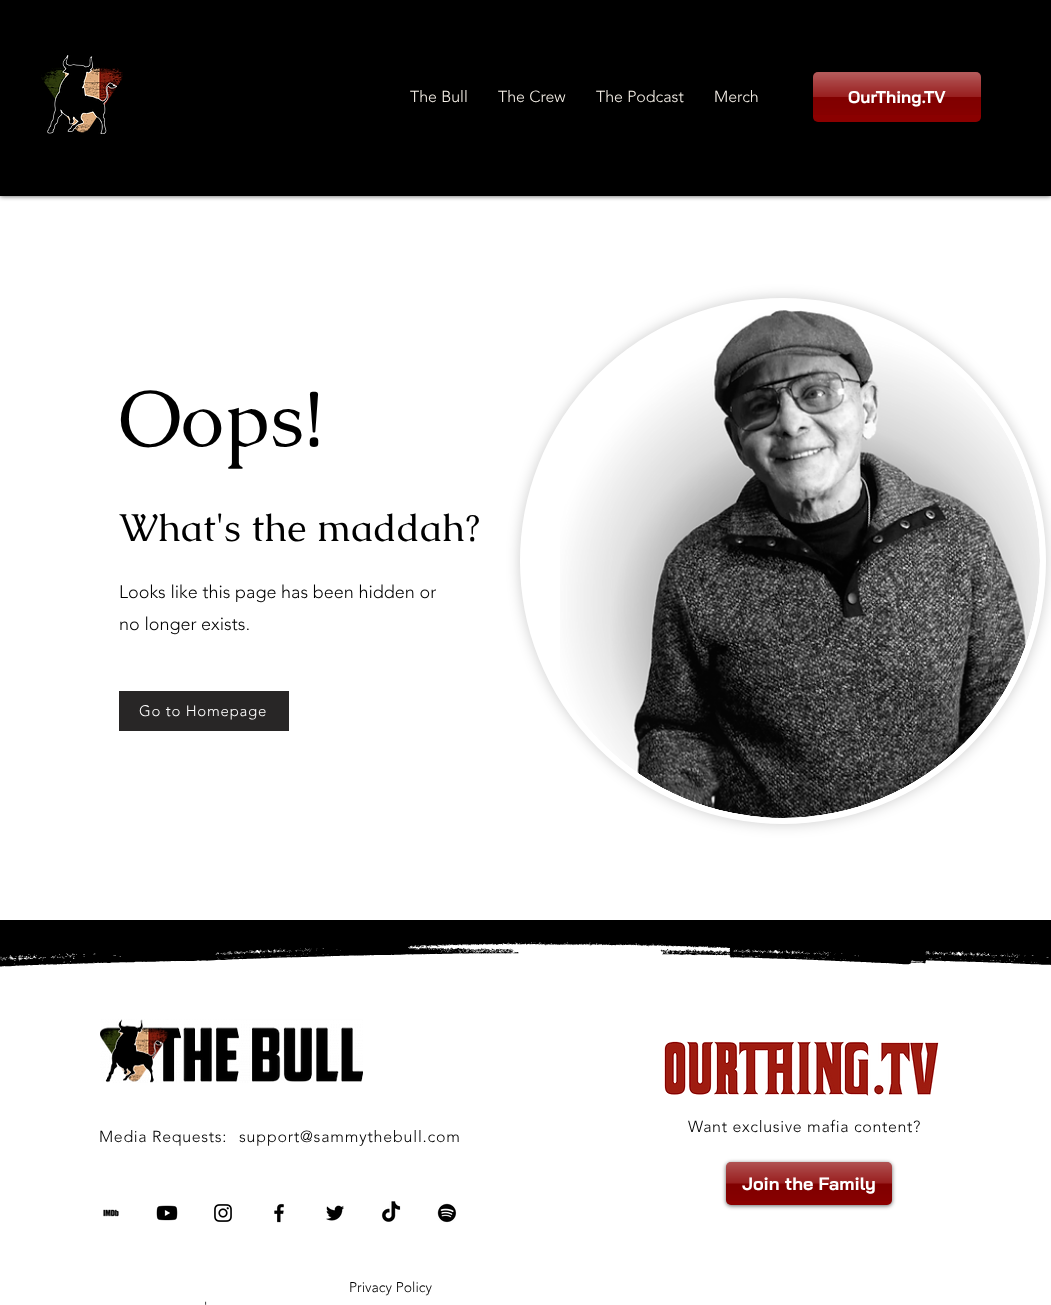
async function draw(canvas) {
  canvas.width = 1051;
  canvas.height = 1305;
  const ctx = canvas.getContext('2d');
  ctx.miterLimit = 4;
  ctx.fontKerning = 'normal';
  function label(s, x, y, font, color) {
    ctx.font = font;
    ctx.fillStyle = color;
    ctx.fillText(s, x, y);
  }
  function rect(x, y, w, h, color) {
    ctx.fillStyle = color;
    ctx.fillRect(x, y, w, h);
  }
  function roundedRect(x, y, w, h, r, color) {
    ctx.fillStyle = color;
    ctx.beginPath();
    ctx.roundRect(x, y, w, h, r);
    ctx.fill();
  }
  async function image(src, x, y, w, h) {
    const img = new Image();
    img.src = src;
    await img.decode();
    ctx.drawImage(img, x, y, w, h);
  }

  rect(0, 0, 1051, 1305, '#fff');
  ctx.fillStyle = '#000000b3';
  ctx.filter = 'blur(2.5px)';
  ctx.beginPath();
  ctx.rect(0, 0, 1051, 196);
  ctx.fill();
  ctx.filter = 'none';
  rect(0, 0, 1051, 196, '#000');
  await image('assets/img1.png', 41, 55, 82, 79);
  label('The Bull', 410, 102, '300 16px "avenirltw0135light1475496"', '#f7f1e9');
  label('The Crew', 498, 102, '300 16px "avenirltw0135light1475496"', '#f7f1e9');
  label('The Podcast', 596, 102, '300 16px "avenirltw0135light1475496"', '#f7f1e9');
  label('Merch', 714, 102, '300 16px "avenirltw0135light1475496"', '#f7f1e9');
  roundedRect(813, 72, 168, 50, 5, '#8b0000');
  await image('assets/img2.png', 813, 72, 168, 43);
  label('OurThing.TV', 848, 103, 'bold 17px Bai Jamjuree', '#fff');
  label('Oops!', 119, 446, '79px Caudex', '#000');
  label('What\'s the maddah?', 119, 541, '39px Caudex', '#000');
  ctx.fillStyle = '#00000033';
  ctx.filter = 'blur(7px)';
  ctx.beginPath();
  ctx.roundRect(520, 298, 526, 526, 263);
  ctx.fill();
  ctx.filter = 'none';
  ctx.fillStyle = '#fff';
  ctx.beginPath();
  ctx.arc(783, 561, 260, 0, 2 * Math.PI);
  ctx.fill();
  ctx.strokeStyle = '#fff';
  ctx.lineWidth = 6;
  ctx.stroke();
  await image('assets/img3.png', 560, 310, 480, 508);
  label('Looks like this page has been hidden or', 119, 598, '300 18px "avenirltw0135light1475496"', '#000');
  label('no longer exists.', 119, 630, '300 18px "avenirltw0135light1475496"', '#000');
  rect(119, 691, 170, 40, '#282626');
  ctx.letterSpacing = '0.75px';
  label('Go to Homepage', 139, 716, '300 15px "avenirltw0135light1475496"', '#fff');
  await image('assets/img4.png', 0, 920, 1051, 47);
  await image('assets/img5.png', 100, 1019, 263, 64);
  ctx.letterSpacing = '0.65px';
  label('Media Requests:', 99, 1142, '300 16px "avenirltw0135light1475496"', '#000');
  ctx.letterSpacing = '0.8px';
  label('support@sammythebull.com', 239, 1142, '300 16px "avenirltw0135light1475496"', '#000');
  await image('assets/img6.png', 103, 1209, 16, 8);
  await image('assets/img7.png', 156, 1205, 22, 16);
  await image('assets/img8.png', 214, 1204, 18, 18);
  await image('assets/img9.png', 274, 1203, 10, 20);
  await image('assets/img10.png', 326, 1205, 18, 16);
  await image('assets/img11.png', 381, 1201, 20, 21);
  await image('assets/img12.png', 437, 1203, 20, 20);
  ctx.letterSpacing = '1px';
  label('\'', 204, 1311, '300 13px "avenirltw0135light1475496"', '#000');
  await image('assets/img13.png', 664, 1041, 275, 55);
  ctx.letterSpacing = '0.65px';
  label('Want exclusive mafia content?', 688, 1132, '300 16px "avenirltw0135light1475496"', '#000');
  ctx.fillStyle = '#00000099';
  ctx.filter = 'blur(2px)';
  ctx.beginPath();
  ctx.roundRect(726, 1163, 166, 43, 5);
  ctx.fill();
  ctx.filter = 'none';
  roundedRect(726, 1162, 166, 43, 5, '#8b0000');
  await image('assets/img14.png', 726, 1162, 166, 39);
  ctx.letterSpacing = '0px';
  label('Join the Family', 742, 1190, 'bold 18px Bai Jamjuree', '#fff');
  label('Privacy Policy', 349, 1292, '300 14px "avenirltw0135light1475496"', '#000');
}

draw(document.querySelector('canvas'));
